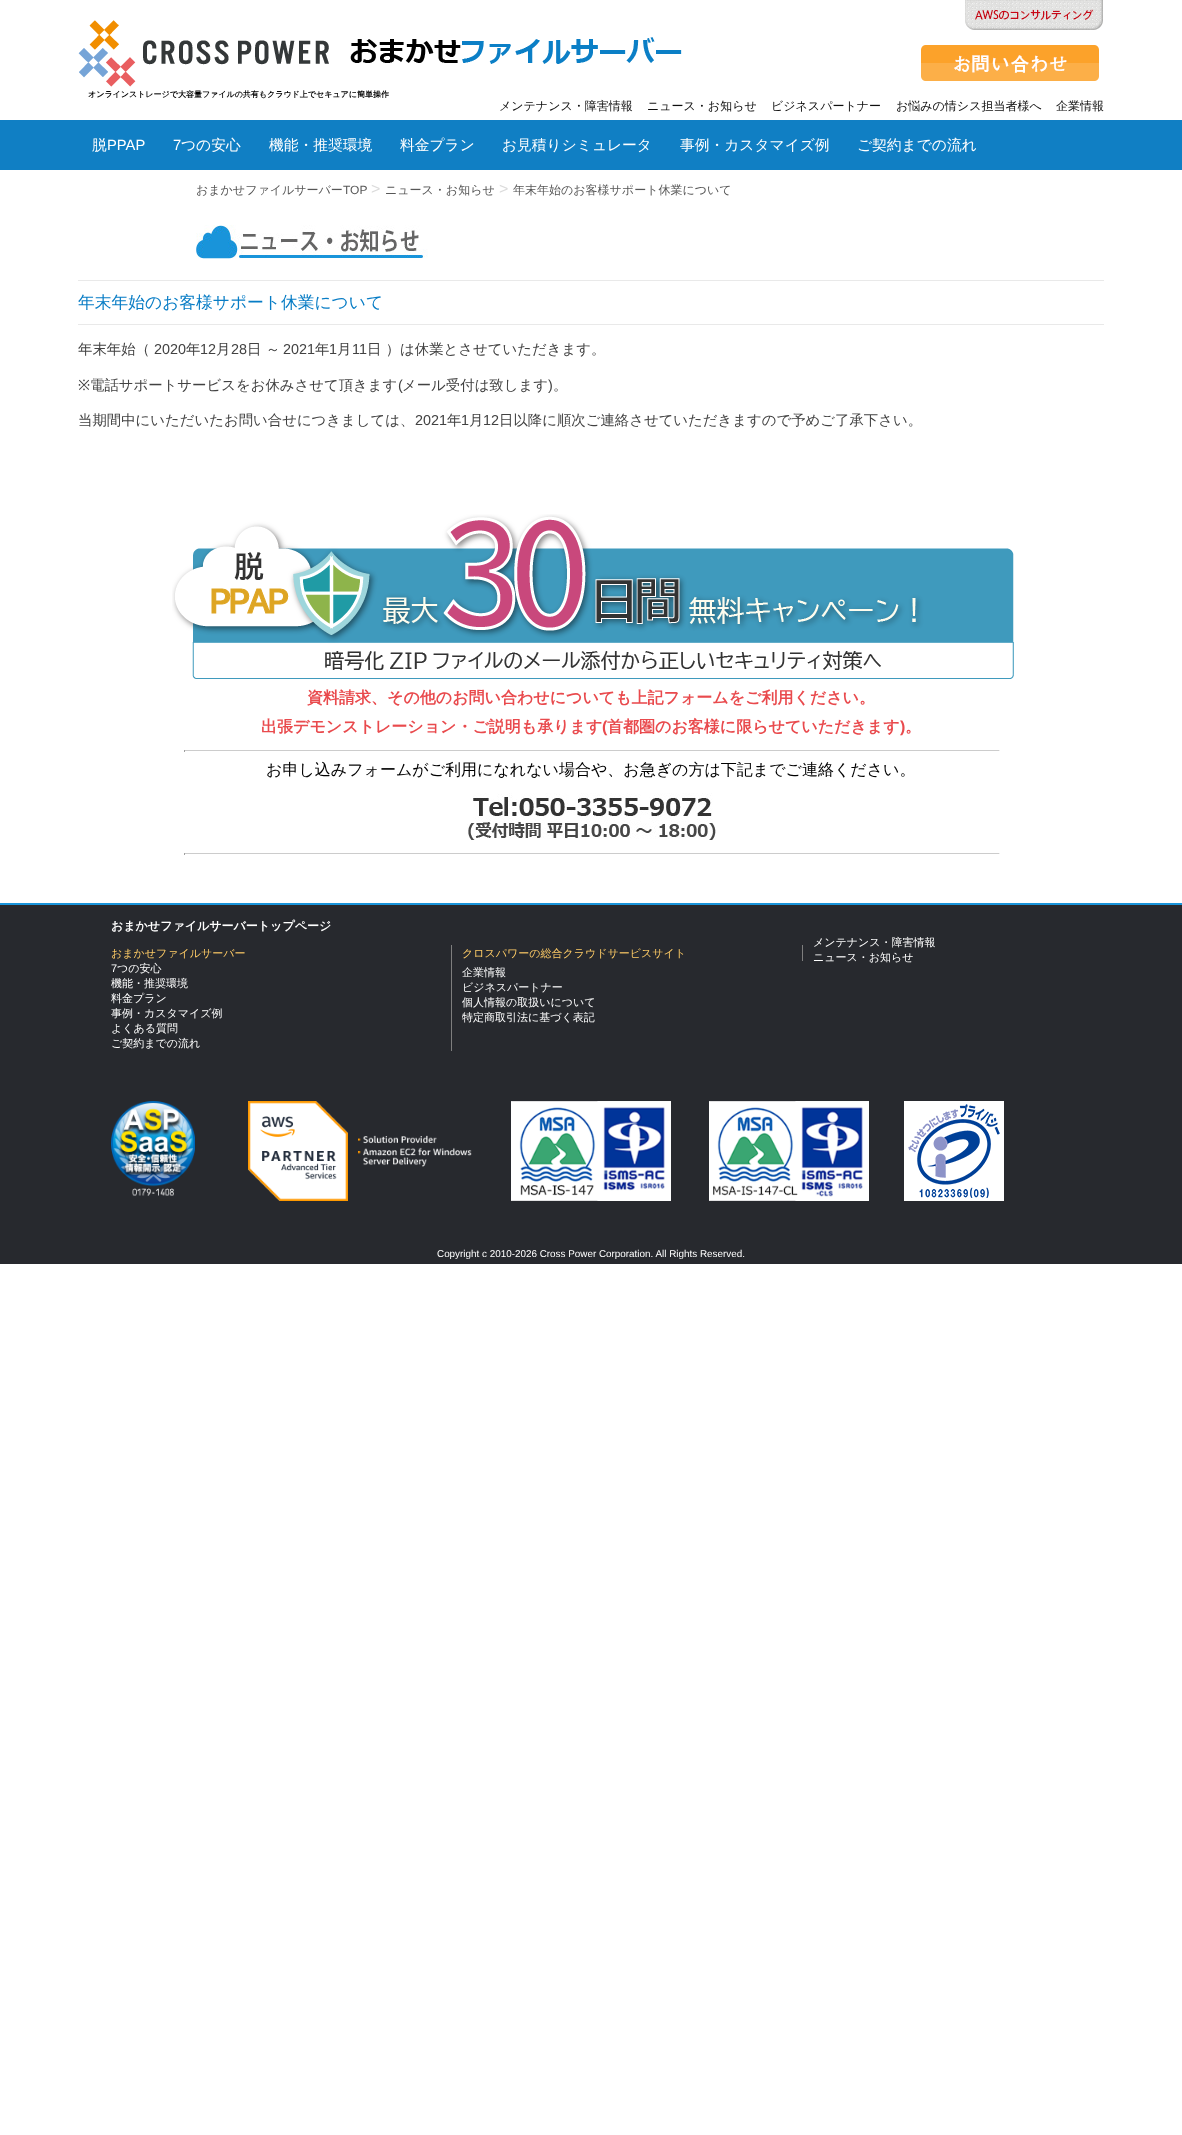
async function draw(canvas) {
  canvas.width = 1182;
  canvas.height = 2135;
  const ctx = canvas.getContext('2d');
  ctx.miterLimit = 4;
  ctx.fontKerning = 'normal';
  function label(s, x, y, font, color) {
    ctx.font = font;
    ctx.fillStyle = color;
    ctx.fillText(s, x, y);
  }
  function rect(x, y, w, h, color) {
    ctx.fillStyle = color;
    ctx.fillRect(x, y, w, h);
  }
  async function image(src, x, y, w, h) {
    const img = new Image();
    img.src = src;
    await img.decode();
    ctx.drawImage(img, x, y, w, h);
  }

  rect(0, 0, 1182, 2135, '#fff');
  await image('assets/img1.png', 965, 0, 138, 30);
  await image('assets/img2.png', 921, 45, 178, 36);
  await image('assets/img3.png', 78, 20, 604, 67);
  label('オンラインストレージで大容量ファイルの共有もクラウド上でセキュアに簡単操作', 88, 97, 'bold 8px WenQuanYi Zen Hei', '#000');
  label('メンテナンス・障害情報', 499, 110, '500 12px WenQuanYi Zen Hei', '#0e0e0e');
  label('ニュース・お知らせ', 647, 110, '500 12px WenQuanYi Zen Hei', '#0e0e0e');
  label('ビジネスパートナー', 771, 110, '500 12px WenQuanYi Zen Hei', '#0e0e0e');
  label('お悩みの情シス担当者様へ', 896, 110, '500 12px WenQuanYi Zen Hei', '#0e0e0e');
  label('企業情報', 1056, 110, '500 12px WenQuanYi Zen Hei', '#0e0e0e');
  rect(0, 120, 1182, 50, '#107fc4');
  label('脱', 92, 150, '500 14.75px WenQuanYi Zen Hei', '#fff');
  label('PPAP', 107, 150, '14.75px Liberation Sans', '#fff');
  label('7', 173, 150, '14.75px Liberation Sans', '#fff');
  label('つの安心', 181, 150, '500 14.75px WenQuanYi Zen Hei', '#fff');
  label('機能・推奨環境', 269, 150, '500 14.75px WenQuanYi Zen Hei', '#fff');
  label('料金プラン', 400, 150, '500 14.75px WenQuanYi Zen Hei', '#fff');
  label('お見積りシミュレータ', 502, 150, '500 14.75px WenQuanYi Zen Hei', '#fff');
  label('事例・カスタマイズ例', 680, 150, '500 14.75px WenQuanYi Zen Hei', '#fff');
  label('ご契約までの流れ', 857, 150, '500 14.75px WenQuanYi Zen Hei', '#fff');
  label('おまかせファイルサーバー', 196, 194, '500 12px WenQuanYi Zen Hei', '#575757');
  label('TOP', 343, 194, '12px Liberation Sans', '#575757');
  label('>', 371, 194, '16px Liberation Sans', '#dbdbdb');
  label('ニュース・お知らせ', 385, 194, '500 12px WenQuanYi Zen Hei', '#575757');
  label('>', 499, 194, '16px Liberation Sans', '#dbdbdb');
  label('年末年始のお客様サポート休業について', 513, 194, '500 12px WenQuanYi Zen Hei', '#575757');
  await image('assets/img4.png', 196, 225, 232, 34);
  rect(78, 280, 1026, 1, '#e9e9e9');
  rect(78, 324, 1026, 1, '#e9e9e9');
  label('年末年始のお客様サポート休業について', 78, 308, '500 16.75px WenQuanYi Zen Hei', '#077cc5');
  label('年末年始（', 78, 354, '500 14.4px WenQuanYi Zen Hei', '#424242');
  label('2020', 154, 354, '14.4px Liberation Sans', '#424242');
  label('年', 186, 354, '500 14.4px WenQuanYi Zen Hei', '#424242');
  label('12', 200, 354, '14.4px Liberation Sans', '#424242');
  label('月', 216, 354, '500 14.4px WenQuanYi Zen Hei', '#424242');
  label('28', 231, 354, '14.4px Liberation Sans', '#424242');
  label('日 ～', 247, 354, '500 14.4px WenQuanYi Zen Hei', '#424242');
  label('2021', 283, 354, '14.4px Liberation Sans', '#424242');
  label('年', 315, 354, '500 14.4px WenQuanYi Zen Hei', '#424242');
  label('1', 329, 354, '14.4px Liberation Sans', '#424242');
  label('月', 337, 354, '500 14.4px WenQuanYi Zen Hei', '#424242');
  label('11', 352, 354, '14.4px Liberation Sans', '#424242');
  label('日 ）は休業とさせていただきます。', 367, 354, '500 14.4px WenQuanYi Zen Hei', '#424242');
  label('※', 78, 390, '14.4px Noto Sans', '#424242');
  label('電話サポートサービスをお休みさせて頂きます', 90, 390, '500 14.4px WenQuanYi Zen Hei', '#424242');
  label('(', 398, 390, '14.4px Liberation Sans', '#424242');
  label('メール受付は致します', 402, 390, '500 14.4px WenQuanYi Zen Hei', '#424242');
  label(')', 548, 390, '14.4px Liberation Sans', '#424242');
  label('。', 553, 390, '500 14.4px WenQuanYi Zen Hei', '#424242');
  label('当期間中にいただいたお問い合せにつきましては、', 78, 425, '500 14.4px WenQuanYi Zen Hei', '#424242');
  label('2021', 415, 425, '14.4px Liberation Sans', '#424242');
  label('年', 447, 425, '500 14.4px WenQuanYi Zen Hei', '#424242');
  label('1', 461, 425, '14.4px Liberation Sans', '#424242');
  label('月', 469, 425, '500 14.4px WenQuanYi Zen Hei', '#424242');
  label('12', 483, 425, '14.4px Liberation Sans', '#424242');
  label('日以降に順次ご連絡させていただきますので予めご了承下さい。', 499, 425, '500 14.4px WenQuanYi Zen Hei', '#424242');
  await image('assets/img5.png', 172, 514, 842, 165);
  label('資料請求、その他のお問い合わせについても上記フォームをご利用ください。', 307, 703, 'bold 16px WenQuanYi Zen Hei', '#e94a4d');
  label('出張デモンストレーション・ご説明も承ります', 261, 732, 'bold 16px WenQuanYi Zen Hei', '#e94a4d');
  label('(', 602, 732, 'bold 16px Liberation Sans', '#e94a4d');
  label('首都圏のお客様に限らせていただきます', 607, 732, 'bold 16px WenQuanYi Zen Hei', '#e94a4d');
  label(')', 900, 732, 'bold 16px Liberation Sans', '#e94a4d');
  label('。', 905, 732, 'bold 16px WenQuanYi Zen Hei', '#e94a4d');
  rect(184, 750, 816, 1, '#ccc');
  rect(999, 750, 1, 2, '#eee');
  rect(999, 751, 1, 1, '#fff');
  rect(184, 750, 1, 2, '#9f9f9f');
  label('お申し込みフォームがご利用になれない場合や、お急ぎの方は下記までご連絡ください。', 266, 775, '500 16px WenQuanYi Zen Hei', '#000');
  await image('assets/img6.png', 467, 793, 249, 47);
  rect(184, 853, 816, 1, '#ccc');
  rect(999, 853, 1, 2, '#eee');
  rect(999, 854, 1, 1, '#fff');
  rect(184, 853, 1, 2, '#9f9f9f');
  rect(0, 905, 1182, 359, '#27292e');
  rect(0, 903, 1182, 2, '#1994da');
  label('おまかせファイルサーバートップページ', 111, 930, 'bold 12px WenQuanYi Zen Hei', '#fff');
  rect(451, 945, 1, 106, '#7e7e7e');
  label('おまかせファイルサーバー', 111, 957, '500 11px WenQuanYi Zen Hei', '#fc6');
  label('7', 111, 972, '11px Liberation Sans', '#fff');
  label('つの安心', 117, 972, '500 11px WenQuanYi Zen Hei', '#fff');
  label('機能・推奨環境', 111, 987, '500 11px WenQuanYi Zen Hei', '#fff');
  label('料金プラン', 111, 1002, '500 11px WenQuanYi Zen Hei', '#fff');
  label('事例・カスタマイズ例', 111, 1017, '500 11px WenQuanYi Zen Hei', '#fff');
  label('よくある質問', 111, 1032, '500 11px WenQuanYi Zen Hei', '#fff');
  label('ご契約までの流れ', 111, 1047, '500 11px WenQuanYi Zen Hei', '#fff');
  label('メンテナンス・障害情報', 813, 946, '500 11px WenQuanYi Zen Hei', '#fff');
  label('ニュース・お知らせ', 813, 961, '500 11px WenQuanYi Zen Hei', '#fff');
  label('企業情報', 462, 976, '500 11px WenQuanYi Zen Hei', '#fff');
  label('ビジネスパートナー', 462, 991, '500 11px WenQuanYi Zen Hei', '#fff');
  label('個人情報の取扱いについて', 462, 1006, '500 11px WenQuanYi Zen Hei', '#fff');
  label('特定商取引法に基づく表記', 462, 1021, '500 11px WenQuanYi Zen Hei', '#fff');
  rect(802, 945, 1, 16, '#7e7e7e');
  label('クロスパワーの総合クラウドサービスサイト', 462, 957, '500 11px WenQuanYi Zen Hei', '#fc6');
  await image('assets/img7.png', 111, 1101, 84, 95);
  await image('assets/img8.png', 248, 1101, 224, 100);
  await image('assets/img9.png', 511, 1101, 160, 100);
  await image('assets/img10.png', 709, 1101, 160, 100);
  rect(904, 1101, 100, 100, '#fff');
  await image('assets/img11.png', 908, 1104, 92, 94);
  label('Copyright c 2010-2026 Cross Power Corporation. All Rights Reserved.', 437, 1257, '9.9px Liberation Sans', '#fff');
}

draw(document.querySelector('canvas'));
